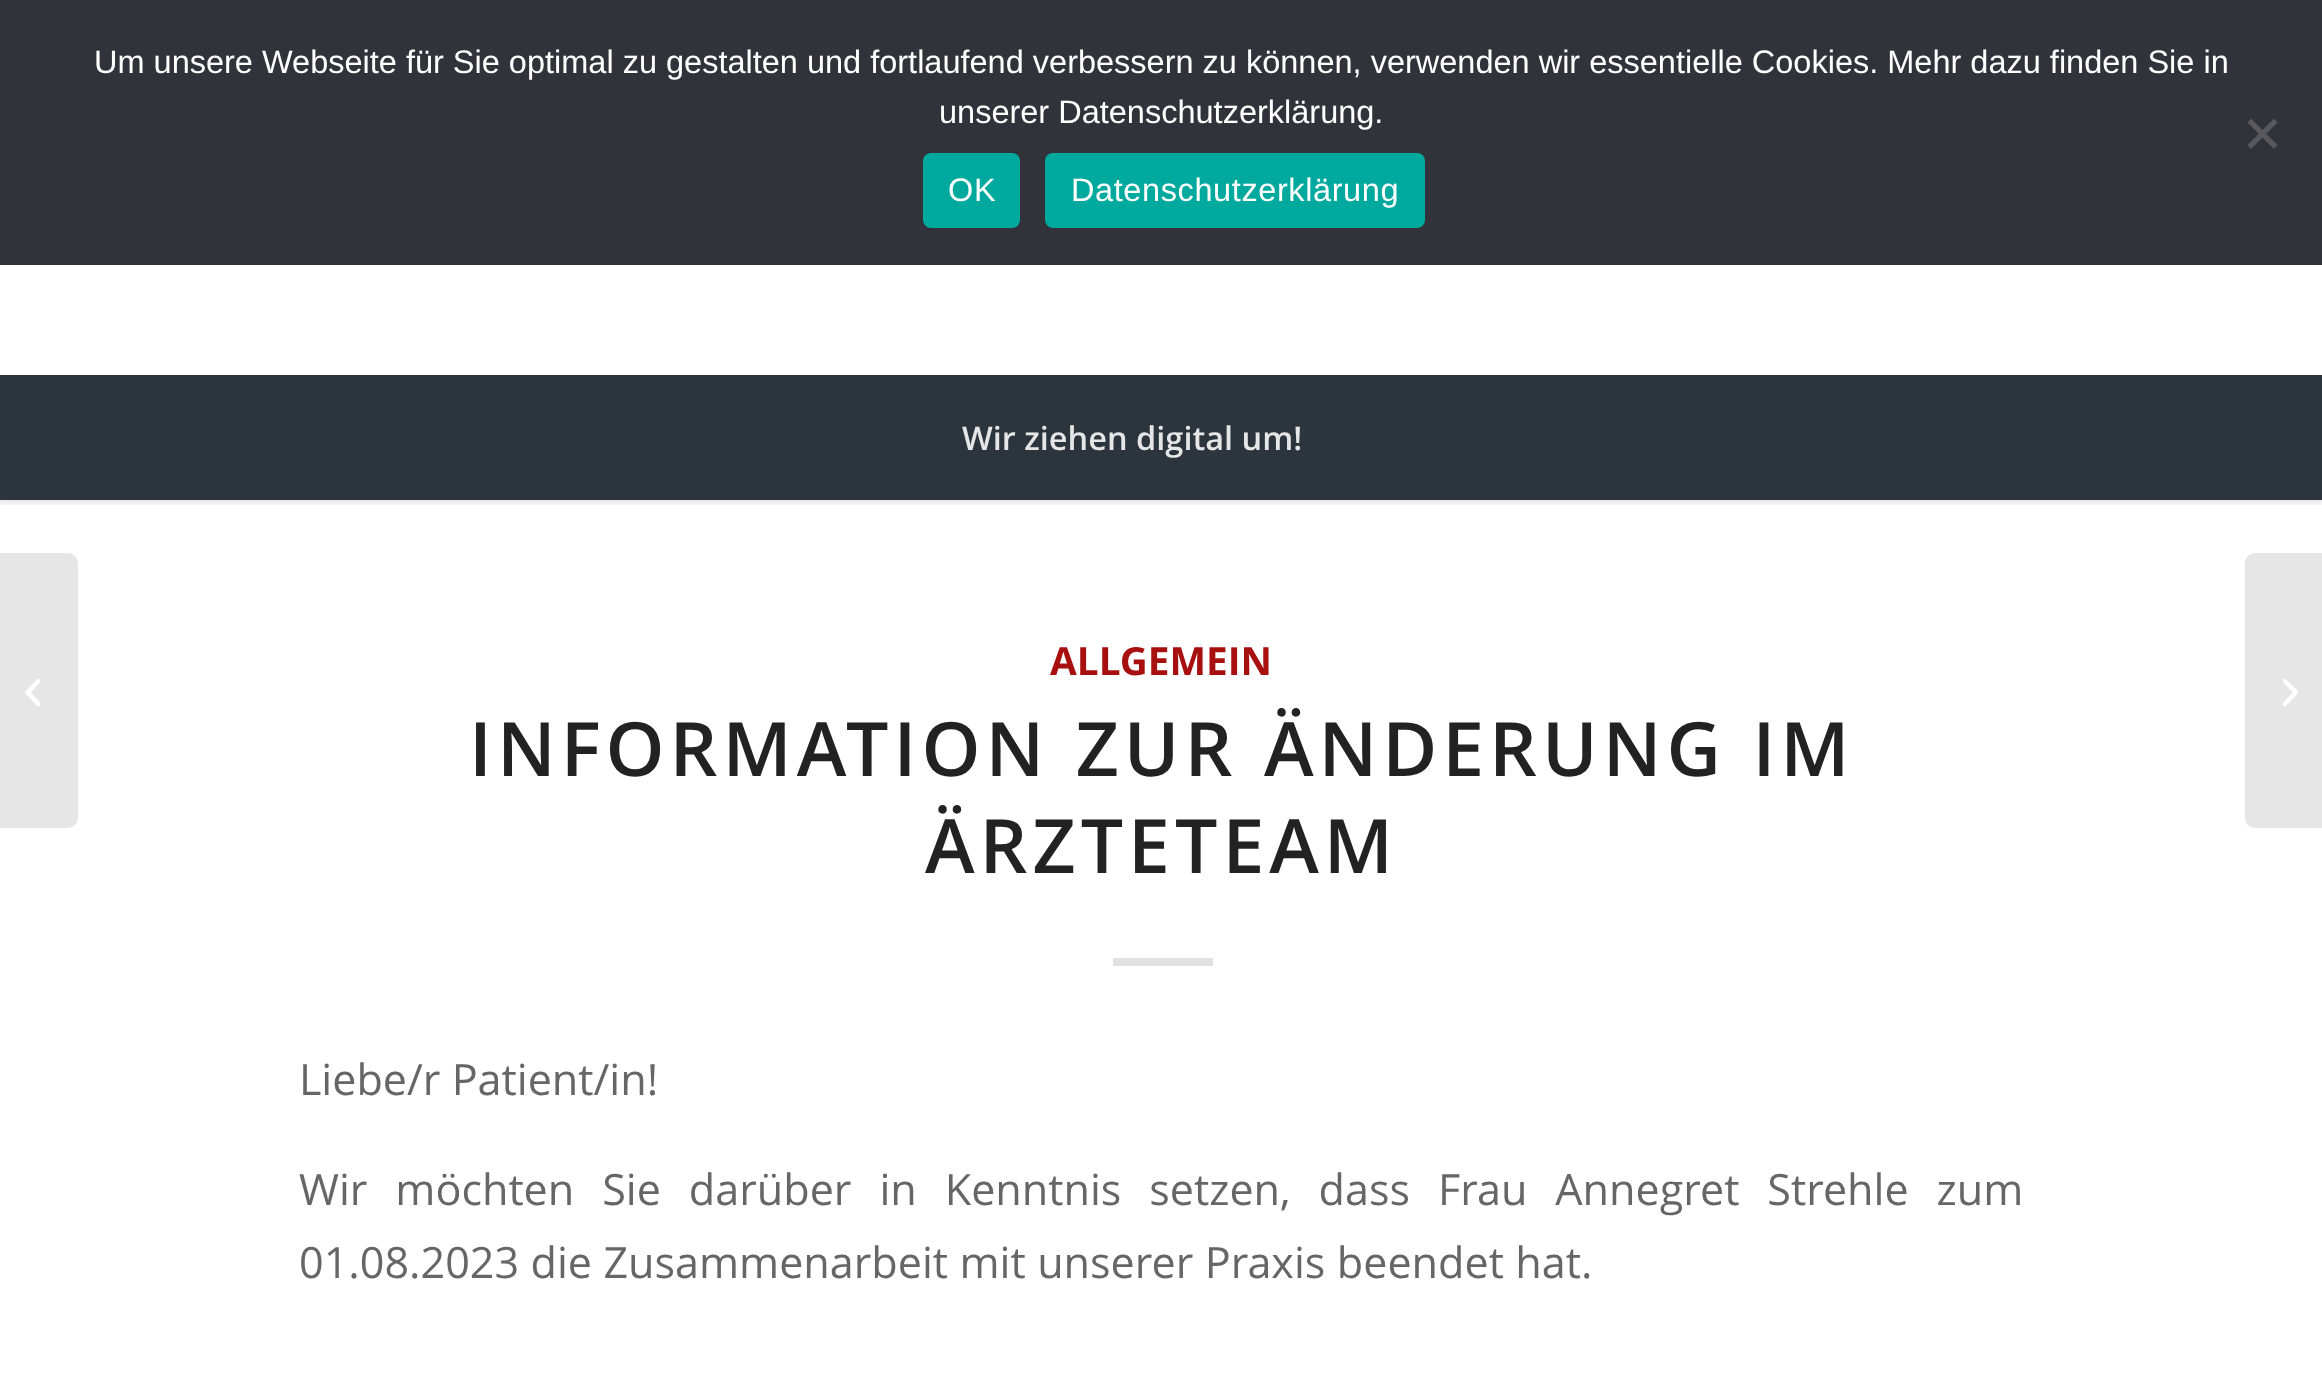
async function draw(canvas) {
  canvas.width = 2322;
  canvas.height = 1376;
  const ctx = canvas.getContext('2d');
  ctx.miterLimit = 4;
  ctx.fontKerning = 'normal';
  function label(s, x, y, font, color) {
    ctx.font = font;
    ctx.fillStyle = color;
    ctx.fillText(s, x, y);
  }
  function rect(x, y, w, h, color) {
    ctx.fillStyle = color;
    ctx.fillRect(x, y, w, h);
  }
  function roundedRect(x, y, w, h, r, color) {
    ctx.fillStyle = color;
    ctx.beginPath();
    ctx.roundRect(x, y, w, h, r);
    ctx.fill();
  }
  async function image(src, x, y, w, h) {
    const img = new Image();
    img.src = src;
    await img.decode();
    ctx.drawImage(img, x, y, w, h);
  }
  let path;

  rect(0, 0, 2322, 1376, '#fff');
  ctx.save();
  ctx.beginPath();
  ctx.rect(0, 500, 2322, 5);
  ctx.clip();
  ctx.fillStyle = '#0000001a';
  ctx.filter = 'blur(2.5px)';
  ctx.beginPath();
  ctx.rect(-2, -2, 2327, 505);
  ctx.fill();
  ctx.filter = 'none';
  ctx.restore();
  rect(0, 0, 2322, 265, '#32323a');
  label('Um unsere Webseite für Sie optimal zu gestalten und fortlaufend verbessern zu können, verwenden wir essentielle Cookies. Mehr dazu finden Sie in', 94, 73, '32.5px Liberation Sans', '#fff');
  label('unserer Datenschutzerklärung.', 939, 123, '32.5px Liberation Sans', '#fff');
  ctx.fillStyle = '#59595d';
  path = new Path2D('M2274 118.5L2277.5 122.5L2251 149L2247.5 145Z');
  ctx.fill(path);
  path = new Path2D('M2247.5 122.5L2251 118.5L2277.5 145L2274 149Z');
  ctx.fill(path);
  roundedRect(923, 153, 97, 75, 8, '#00a99d');
  ctx.letterSpacing = '0.6px';
  label('OK', 948, 201, '32.5px Liberation Sans', '#fff');
  roundedRect(1045, 153, 380, 75, 8, '#00a99d');
  label('Datenschutzerklärung', 1071, 201, '32.5px Liberation Sans', '#fff');
  rect(0, 375, 2322, 125, '#2c353d');
  ctx.letterSpacing = '0px';
  label('Wir ziehen digital um!', 962, 450, '600 32.5px Open Sans', '#e6e6e6');
  ctx.beginPath();
  ctx.roundRect(0, 553, 78, 275, [0, 10, 10, 0]);
  ctx.fill();
  await image('assets/img1.png', 25, 678, 15, 29);
  label('ALLGEMEIN', 1050, 675, 'bold 38.75px Open Sans', '#a81010');
  ctx.letterSpacing = '5px';
  ctx.wordSpacing = '2px';
  label('INFORMATION ZUR ÄNDERUNG IM', 469, 776, '600 75px Open Sans', '#222');
  ctx.wordSpacing = '0px';
  label('ÄRZTETEAM', 925, 873, '600 75px Open Sans', '#222');
  rect(1113, 958, 100, 8, '#e1e1e1');
  ctx.letterSpacing = '0px';
  label('Liebe/r Patient/in!', 299, 1095, '43.1px Open Sans', '#666');
  ctx.wordSpacing = '16.75px';
  label('Wir möchten Sie darüber in Kenntnis setzen, dass Frau Annegret Strehle zum', 299, 1205, '43.1px Open Sans', '#666');
  ctx.wordSpacing = '0.25px';
  label('01.08.2023 die Zusammenarbeit mit unserer Praxis beendet hat.', 299, 1278, '43.1px Open Sans', '#666');
  ctx.fillStyle = '#e6e6e6';
  path = new Path2D('M2255 553H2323V828H2255C2249.5 828 2245 823.5 2245 818V563C2245 557.5 2249.5 553 2255 553Z');
  ctx.fill(path);
  await image('assets/img2.png', 2283, 678, 15, 29);
}

draw(document.querySelector('canvas'));
